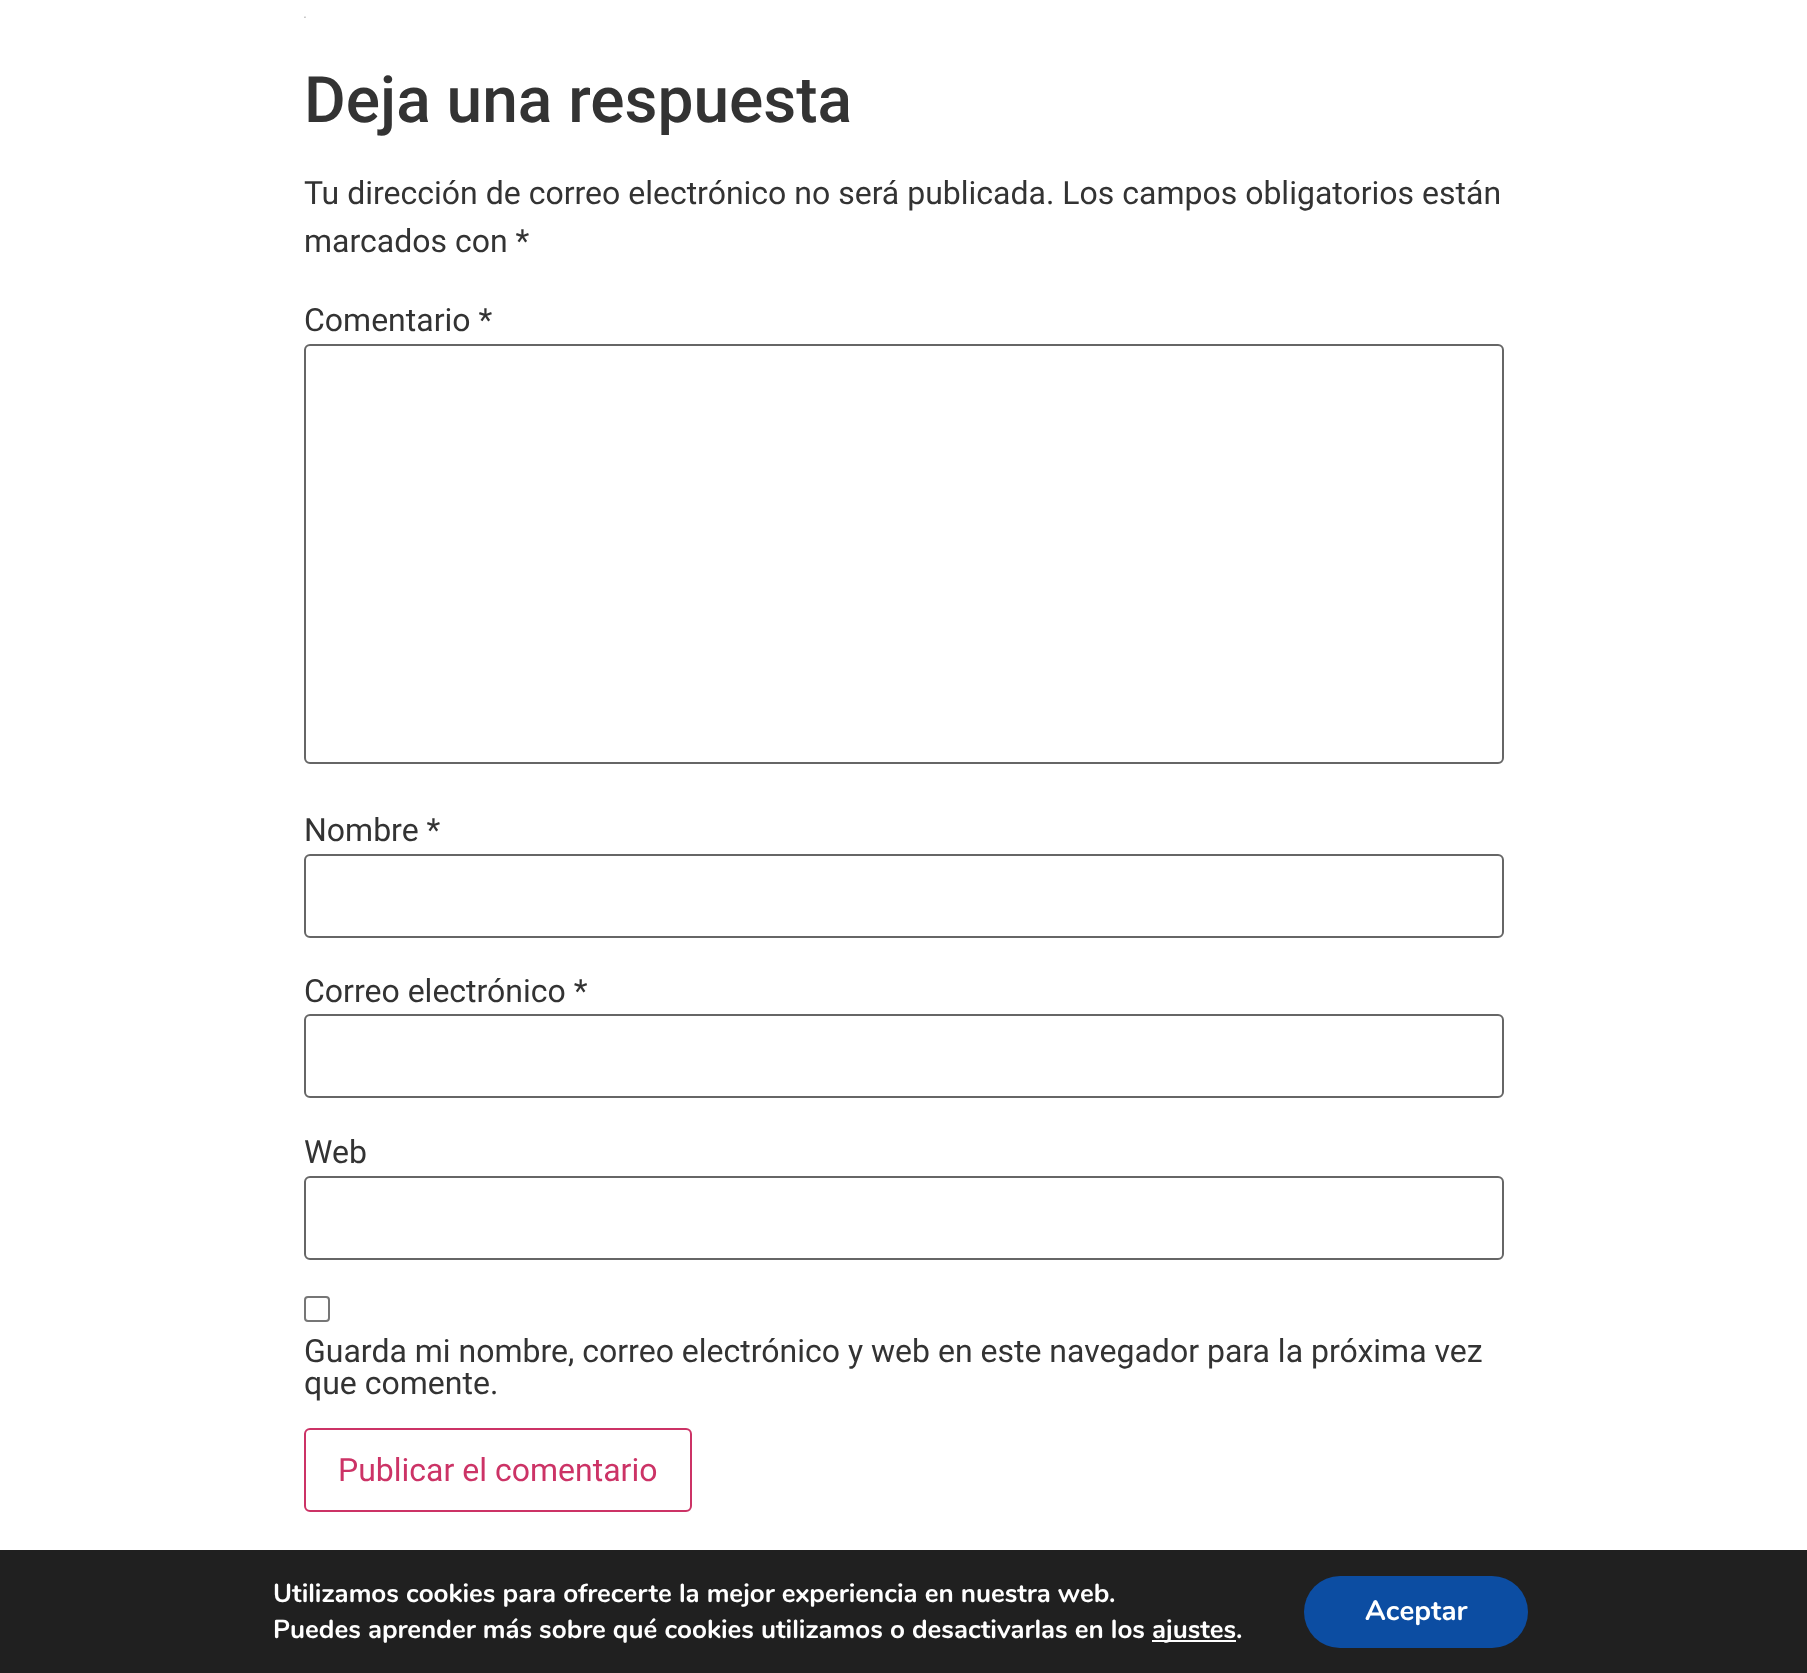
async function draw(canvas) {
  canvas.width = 1807;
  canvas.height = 1673;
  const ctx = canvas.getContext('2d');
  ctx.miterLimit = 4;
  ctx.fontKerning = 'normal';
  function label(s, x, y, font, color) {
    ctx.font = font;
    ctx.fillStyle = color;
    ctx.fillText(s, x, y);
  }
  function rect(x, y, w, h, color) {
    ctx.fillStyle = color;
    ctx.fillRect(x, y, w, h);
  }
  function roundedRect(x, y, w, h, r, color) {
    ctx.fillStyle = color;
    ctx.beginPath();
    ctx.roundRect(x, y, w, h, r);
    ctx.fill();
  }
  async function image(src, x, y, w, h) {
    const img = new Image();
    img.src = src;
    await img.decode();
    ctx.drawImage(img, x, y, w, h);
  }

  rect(0, 0, 1807, 1673, '#fff');
  await image('assets/img1.png', 304, 16, 2, 2);
  label('Deja una respuesta', 304, 122, '500 64px Roboto', '#333');
  label('Tu dirección de correo electrónico no será publicada. Los campos obligatorios están', 304, 204, '32px Roboto', '#333');
  label('marcados con *', 304, 252, '32px Roboto', '#333');
  label('Comentario *', 304, 331, '32px Roboto', '#333');
  ctx.beginPath();
  ctx.roundRect(305, 345, 1198, 418, 5);
  ctx.strokeStyle = '#666';
  ctx.lineWidth = 2;
  ctx.stroke();
  label('Nombre *', 304, 841, '32px Roboto', '#333');
  ctx.beginPath();
  ctx.roundRect(305, 855, 1198, 82, 5);
  ctx.stroke();
  label('Correo electrónico *', 304, 1002, '32px Roboto', '#333');
  ctx.beginPath();
  ctx.roundRect(305, 1015, 1198, 82, 5);
  ctx.stroke();
  label('Web', 304, 1163, '32px Roboto', '#333');
  ctx.beginPath();
  ctx.roundRect(305, 1177, 1198, 82, 5);
  ctx.stroke();
  ctx.beginPath();
  ctx.roundRect(305, 1297, 24, 24, 3);
  ctx.strokeStyle = '#767676';
  ctx.stroke();
  label('Guarda mi nombre, correo electrónico y web en este navegador para la próxima vez', 304, 1362, '32px Roboto', '#333');
  label('que comente.', 304, 1394, '32px Roboto', '#333');
  ctx.beginPath();
  ctx.roundRect(305, 1429, 386, 82, 5);
  ctx.strokeStyle = '#c36';
  ctx.stroke();
  label('Publicar el comentario', 338, 1481, '32px Roboto', '#c36');
  rect(0, 1550, 1807, 123, '#202020');
  label('Utilizamos cookies para ofrecerte la mejor experiencia en nuestra web.', 273, 1602, 'bold 26px Nunito', '#fff');
  label('Puedes aprender más sobre qué cookies utilizamos o desactivarlas en los', 273, 1638, 'bold 26px Nunito', '#fff');
  rect(1152, 1640, 84, 2, '#fff');
  label('ajustes.', 1152, 1638, 'bold 26px Nunito', '#fff');
  roundedRect(1304, 1576, 224, 72, 36, '#0c4da2');
  label('Aceptar', 1365, 1620, 'bold 28px Nunito', '#fff');
}

draw(document.querySelector('canvas'));
